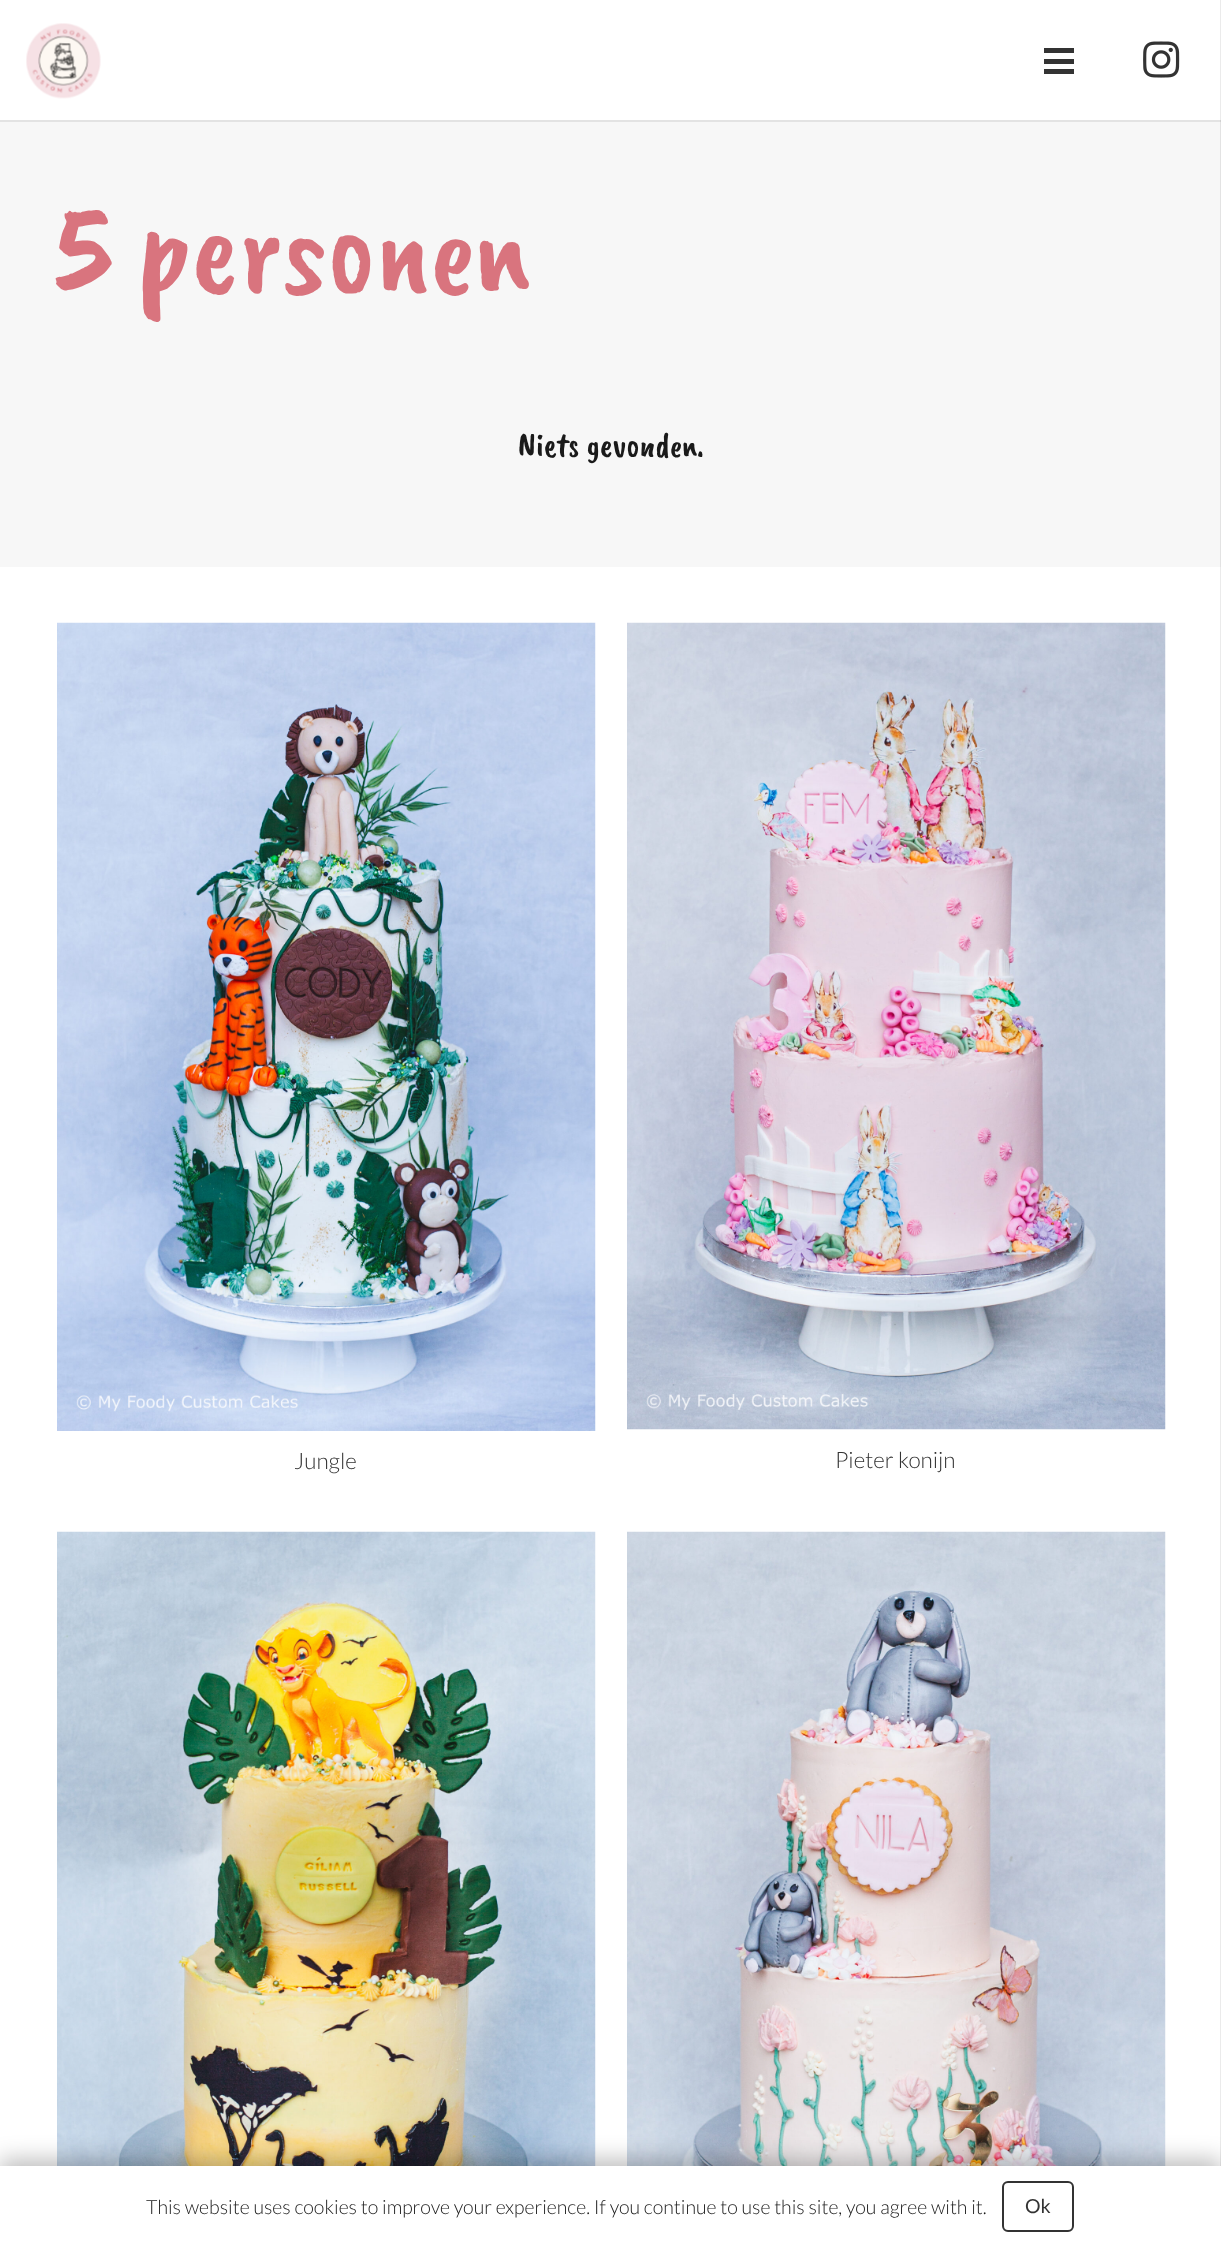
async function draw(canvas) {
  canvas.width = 1221;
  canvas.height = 2246;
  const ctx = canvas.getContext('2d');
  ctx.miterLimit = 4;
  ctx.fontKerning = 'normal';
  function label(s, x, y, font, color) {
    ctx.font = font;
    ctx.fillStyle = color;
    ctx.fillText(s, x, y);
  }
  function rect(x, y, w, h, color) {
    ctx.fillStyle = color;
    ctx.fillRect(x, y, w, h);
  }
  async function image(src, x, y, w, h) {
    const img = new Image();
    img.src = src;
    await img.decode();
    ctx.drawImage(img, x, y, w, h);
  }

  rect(0, 0, 1221, 2246, '#fff');
  rect(1220, 567, 1, 1599, '#ebebeb');
  rect(0, 120, 1221, 2, '#e3e3e3');
  rect(1220, 120, 1, 2, '#d1d1d1');
  rect(1220, 0, 1, 120, '#ebebeb');
  await image('assets/img1.png', 26, 23, 75, 76);
  rect(1044, 59, 30, 5, '#333');
  rect(1044, 48, 30, 5, '#333');
  rect(1044, 69, 30, 5, '#333');
  await image('assets/img2.png', 1143, 41, 37, 37);
  rect(0, 122, 1220, 445, '#f7f7f7');
  rect(1220, 122, 1, 445, '#e3e3e3');
  label('5 personen', 56, 290, '124px Caveat Brush', '#d9747e');
  label('Niets gevonden.', 518, 456, '33.75px Caveat Brush', '#1a1a1a');
  await image('assets/img3.png', 57, 622, 539, 809);
  label('Jungle', 294, 1469, '300 22.5px Lato', '#333');
  await image('assets/img4.png', 627, 622, 539, 808);
  label('Pieter konijn', 835, 1468, '300 22.5px Lato', '#333');
  await image('assets/img5.png', 57, 1531, 539, 635);
  await image('assets/img6.png', 627, 1531, 539, 635);
  ctx.fillStyle = '#00000040';
  ctx.filter = 'blur(11px)';
  ctx.beginPath();
  ctx.rect(0, 2159, 1221, 81);
  ctx.fill();
  ctx.filter = 'none';
  rect(0, 2166, 1221, 80, '#fff');
  label('This website uses cookies to improve your experience. If you continue to use this site, you agree with it.', 146, 2214, '300 19.5px Lato', '#1a1a1a');
  ctx.beginPath();
  ctx.roundRect(1003, 2182, 70, 49, 5);
  ctx.strokeStyle = '#333';
  ctx.lineWidth = 2;
  ctx.stroke();
  label('Ok', 1025, 2213, '19.5px Lato', '#333');
}

draw(document.querySelector('canvas'));
